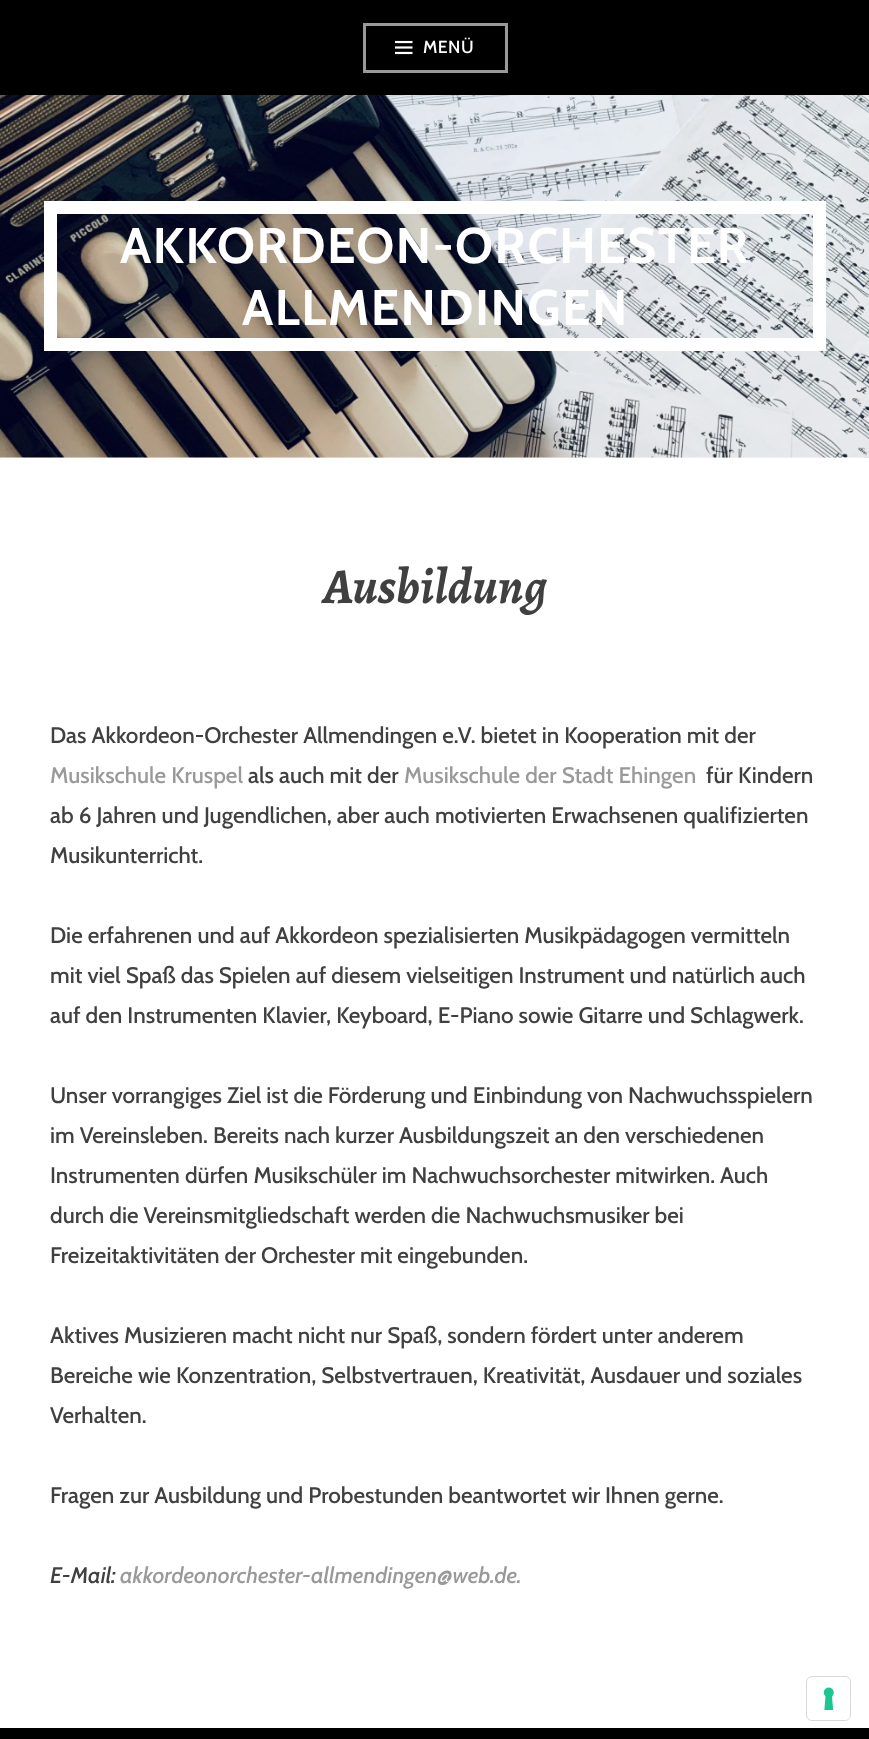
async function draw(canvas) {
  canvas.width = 869;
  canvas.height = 1739;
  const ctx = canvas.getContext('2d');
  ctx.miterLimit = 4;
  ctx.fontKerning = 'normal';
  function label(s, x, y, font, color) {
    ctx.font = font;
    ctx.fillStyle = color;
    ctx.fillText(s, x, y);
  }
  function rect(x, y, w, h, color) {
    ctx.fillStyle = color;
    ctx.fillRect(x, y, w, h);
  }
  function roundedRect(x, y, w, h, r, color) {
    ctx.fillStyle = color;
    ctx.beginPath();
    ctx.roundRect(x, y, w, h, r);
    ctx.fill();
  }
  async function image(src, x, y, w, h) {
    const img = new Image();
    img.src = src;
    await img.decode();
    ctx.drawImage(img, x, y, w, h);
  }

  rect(0, 0, 869, 1739, '#fff');
  rect(0, 0, 869, 95, '#000');
  ctx.strokeStyle = '#999';
  ctx.lineWidth = 3;
  ctx.strokeRect(364.5, 24.5, 142, 47);
  await image('assets/img1.png', 395, 40, 18, 15);
  ctx.letterSpacing = '0.5px';
  label('MENÜ', 423, 53, '500 17.5px Cabin', '#fff');
  rect(0, 457, 869, 1, '#f7f7f7');
  await image('assets/img2.png', 0, 95, 869, 363);
  ctx.strokeStyle = '#fff';
  ctx.lineWidth = 13;
  ctx.strokeRect(50.5, 207.5, 769, 137);
  ctx.letterSpacing = '1.5px';
  label('AKKORDEON-ORCHESTER', 120, 263, 'bold 50px Cabin', '#fff');
  label('ALLMENDINGEN', 242, 325, 'bold 50px Cabin', '#fff');
  ctx.letterSpacing = '0px';
  label('Ausbildung', 323, 603, 'italic bold 50px Alegreya', '#404040');
  label('Das Akkordeon-Orchester Allmendingen e.V. bietet in Kooperation mit der', 50, 743, '500 22.5px Cabin', '#404040');
  label('Musikschule Kruspel', 50, 783, '500 22.5px Cabin', '#999');
  label('als auch mit der', 248, 783, '500 22.5px Cabin', '#404040');
  label('Musikschule der Stadt Ehingen', 404, 783, '500 22.5px Cabin', '#999');
  label('für Kindern', 706, 783, '500 22.5px Cabin', '#404040');
  label('ab 6 Jahren und Jugendlichen, aber auch motivierten Erwachsenen qualifizierten', 50, 823, '500 22.5px Cabin', '#404040');
  label('Musikunterricht.', 50, 863, '500 22.5px Cabin', '#404040');
  label('Die erfahrenen und auf Akkordeon spezialisierten Musikpädagogen vermitteln', 50, 943, '500 22.5px Cabin', '#404040');
  label('mit viel Spaß das Spielen auf diesem vielseitigen Instrument und natürlich auch', 50, 983, '500 22.5px Cabin', '#404040');
  label('auf den Instrumenten Klavier, Keyboard, E-Piano sowie Gitarre und Schlagwerk.', 50, 1023, '500 22.5px Cabin', '#404040');
  label('Unser vorrangiges Ziel ist die Förderung und Einbindung von Nachwuchsspielern', 50, 1103, '500 22.5px Cabin', '#404040');
  label('im Vereinsleben. Bereits nach kurzer Ausbildungszeit an den verschiedenen', 50, 1143, '500 22.5px Cabin', '#404040');
  label('Instrumenten dürfen Musikschüler im Nachwuchsorchester mitwirken. Auch', 50, 1183, '500 22.5px Cabin', '#404040');
  label('durch die Vereinsmitgliedschaft werden die Nachwuchsmusiker bei', 50, 1223, '500 22.5px Cabin', '#404040');
  label('Freizeitaktivitäten der Orchester mit eingebunden.', 50, 1263, '500 22.5px Cabin', '#404040');
  label('Aktives Musizieren macht nicht nur Spaß, sondern fördert unter anderem', 50, 1343, '500 22.5px Cabin', '#404040');
  label('Bereiche wie Konzentration, Selbstvertrauen, Kreativität, Ausdauer und soziales', 50, 1383, '500 22.5px Cabin', '#404040');
  label('Verhalten.', 50, 1423, '500 22.5px Cabin', '#404040');
  label('Fragen zur Ausbildung und Probestunden beantwortet wir Ihnen gerne.', 50, 1503, '500 22.5px Cabin', '#404040');
  label('E-Mail:', 50, 1583, 'italic 500 22.5px Cabin', '#404040');
  label('akkordeonorchester-allmendingen@web.de.', 120, 1583, 'italic 500 22.5px Cabin', '#999');
  rect(0, 1728, 869, 11, '#000');
  ctx.beginPath();
  ctx.roundRect(806.5, 1676.5, 44, 44, 5.5);
  ctx.strokeStyle = '#d9d9d9';
  ctx.lineWidth = 1;
  ctx.stroke();
  roundedRect(808, 1678, 42, 42, 5, '#fff');
  await image('assets/img3.png', 823, 1687, 11, 23);
}

draw(document.querySelector('canvas'));
